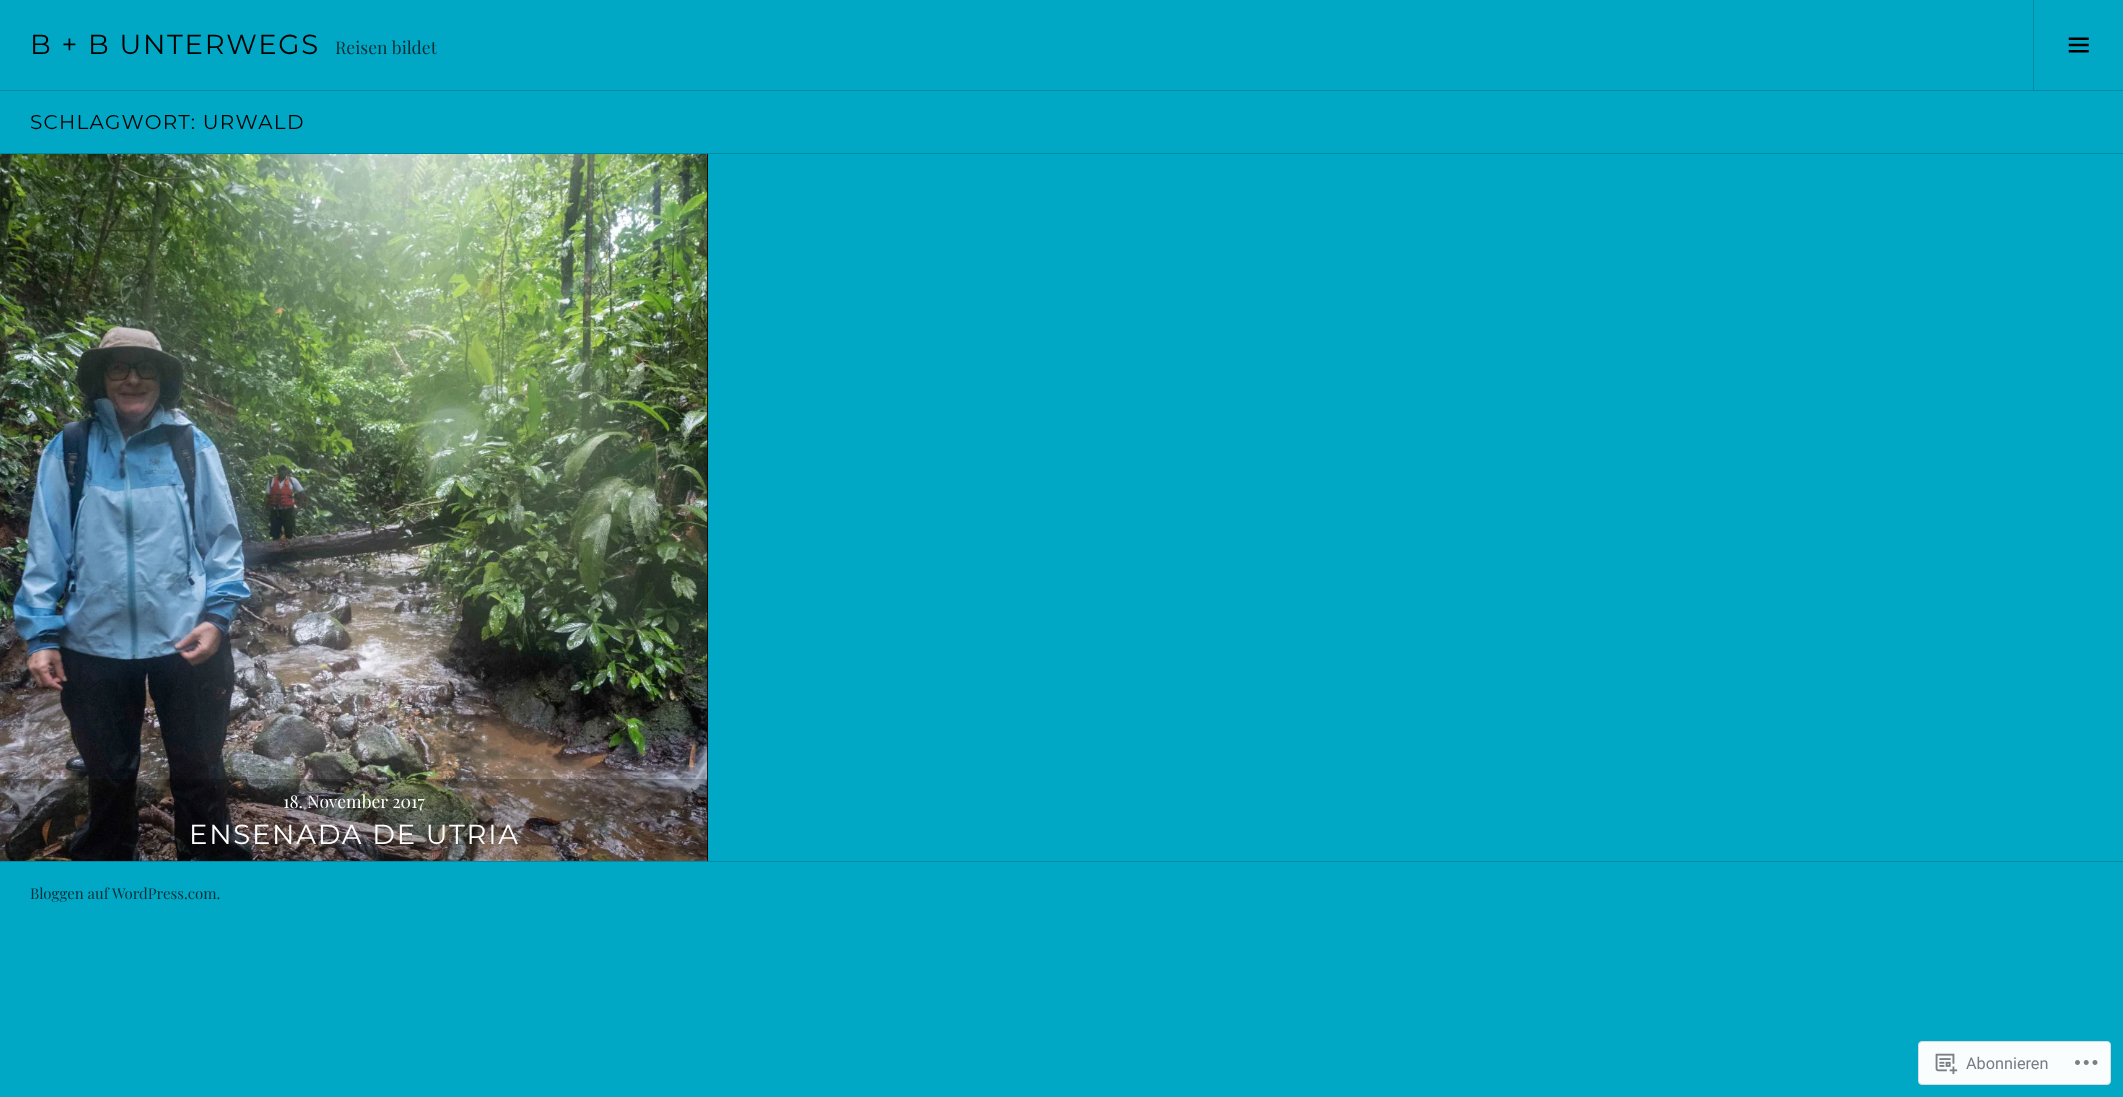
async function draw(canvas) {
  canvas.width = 2123;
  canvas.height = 1097;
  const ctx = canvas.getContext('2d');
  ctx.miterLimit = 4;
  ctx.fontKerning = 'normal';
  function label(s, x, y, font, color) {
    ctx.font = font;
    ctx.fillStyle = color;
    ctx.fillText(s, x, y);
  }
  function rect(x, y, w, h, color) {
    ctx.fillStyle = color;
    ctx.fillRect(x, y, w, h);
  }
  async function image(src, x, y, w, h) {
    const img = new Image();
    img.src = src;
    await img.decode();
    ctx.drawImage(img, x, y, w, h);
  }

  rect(0, 0, 2123, 1097, '#00a8c6');
  rect(0, 90, 2123, 1, '#008aa3');
  ctx.letterSpacing = '1.75px';
  label('B + B UNTERWEGS', 30, 54, '27.5px Montserrat', '#000');
  ctx.letterSpacing = '0px';
  label('Reisen bildet', 335, 54, '17.5px Playfair Display', '#002f38');
  rect(2033, 0, 1, 90, '#008aa3');
  await image('assets/img1.png', 2068, 37, 21, 16);
  rect(0, 153, 2123, 1, '#008aa3');
  ctx.letterSpacing = '1.25px';
  label('SCHLAGWORT: URWALD', 30, 129, '20px Montserrat', '#000');
  rect(707, 154, 1, 707, '#000');
  await image('assets/img2.png', 0, 154, 708, 707);
  rect(0, 779, 708, 82, '#00000040');
  ctx.letterSpacing = '0px';
  label('18. November 2017', 283, 808, '17.5px Playfair Display', '#fff');
  ctx.letterSpacing = '1.75px';
  label('ENSENADA DE UTRIA', 189, 844, '27.5px Montserrat', '#fff');
  rect(0, 861, 2123, 1, '#008aa3');
  ctx.letterSpacing = '0px';
  label('Bloggen auf WordPress.com.', 30, 899, '15px Playfair Display', '#002f38');
  ctx.fillStyle = '#fafdfe';
  ctx.beginPath();
  ctx.roundRect(1918.5, 1041.5, 192, 43, 3.5);
  ctx.fill();
  ctx.strokeStyle = '#d8dbde';
  ctx.stroke();
  await image('assets/img3.png', 1935, 1053, 23, 22);
  label('Abonnieren', 1966, 1069, '16.25px Roboto', '#767d83');
  await image('assets/img4.png', 2075, 1060, 23, 5);
}

draw(document.querySelector('canvas'));
